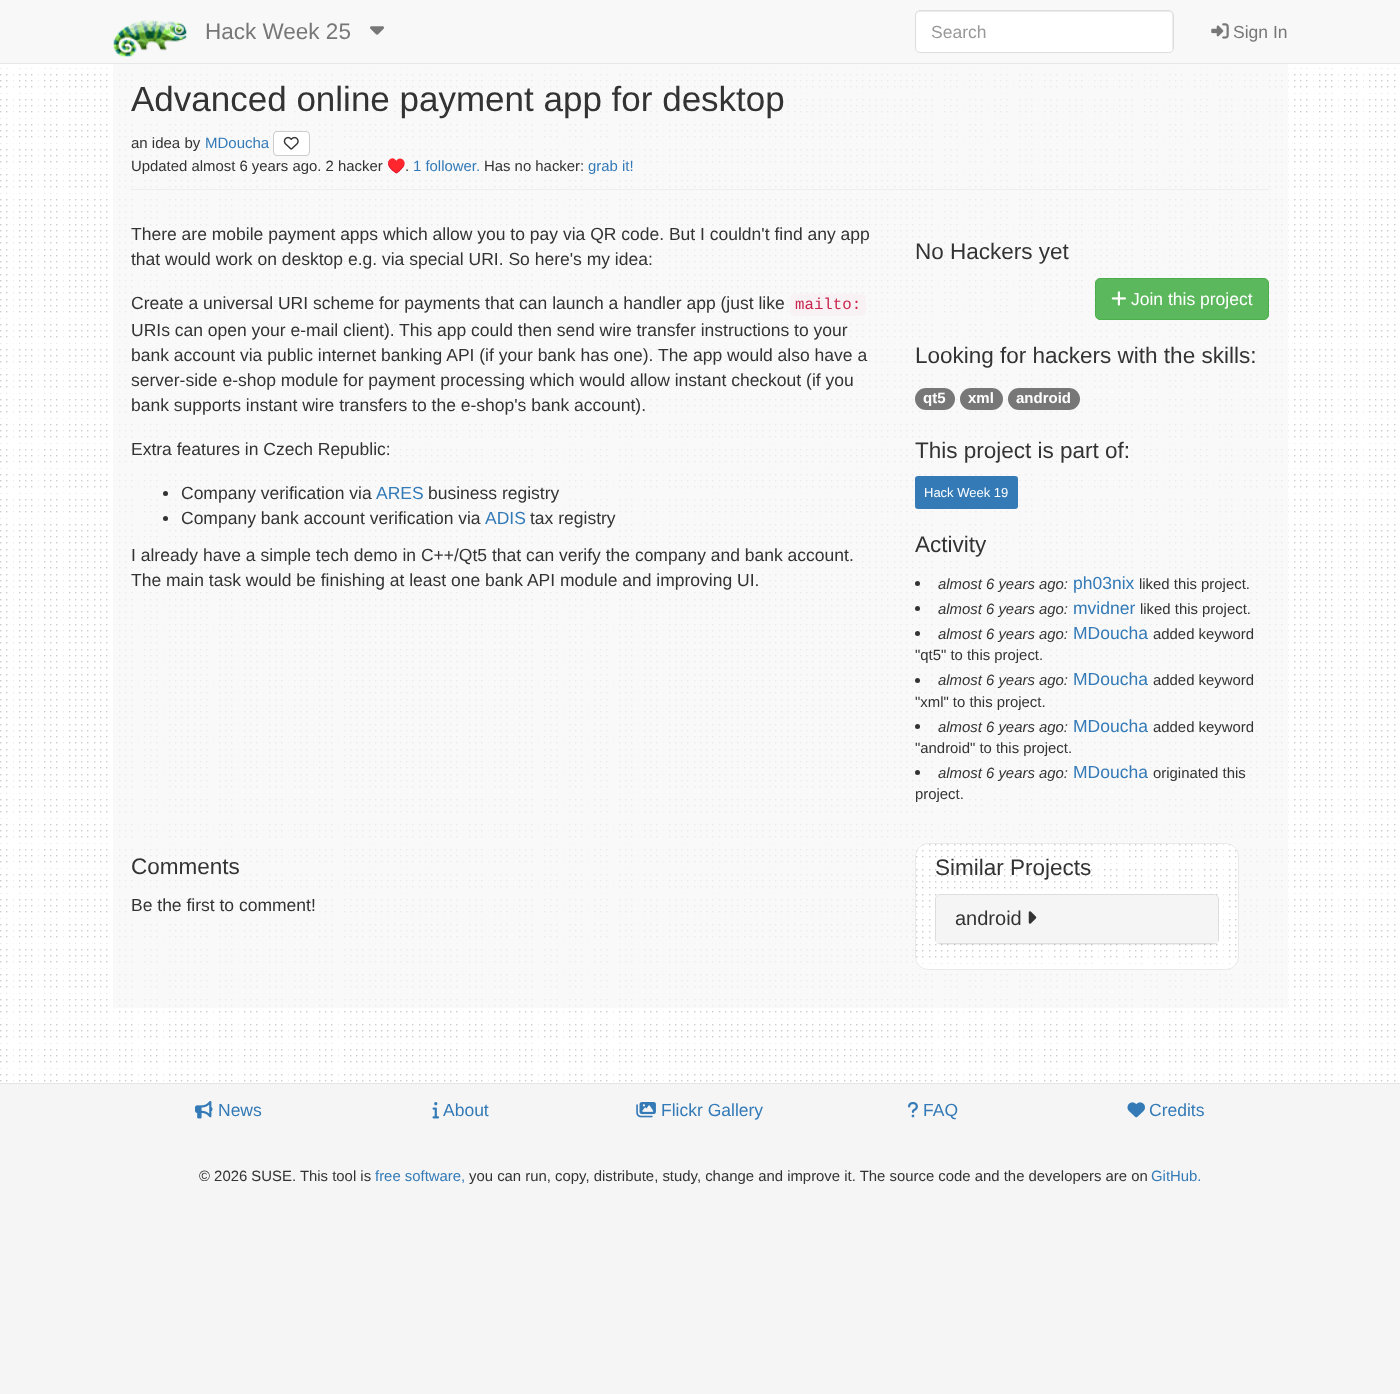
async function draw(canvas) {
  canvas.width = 1400;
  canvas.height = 1394;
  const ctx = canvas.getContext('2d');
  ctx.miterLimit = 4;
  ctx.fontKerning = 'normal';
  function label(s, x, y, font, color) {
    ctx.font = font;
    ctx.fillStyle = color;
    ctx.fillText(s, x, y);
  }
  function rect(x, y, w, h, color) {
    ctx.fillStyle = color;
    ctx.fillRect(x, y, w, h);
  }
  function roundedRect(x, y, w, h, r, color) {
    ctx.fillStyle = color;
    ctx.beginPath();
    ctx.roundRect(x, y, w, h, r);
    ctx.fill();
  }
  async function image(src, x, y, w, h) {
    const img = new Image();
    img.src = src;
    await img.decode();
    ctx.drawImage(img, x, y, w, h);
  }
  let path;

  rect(0, 0, 1400, 1394, '#fff');
  await image('assets/img1.png', 0, 64, 1396, 1019);
  rect(0, 0, 1400, 63, '#f8f8f8');
  rect(0, 63, 1400, 1, '#e7e7e7');
  await image('assets/img2.png', 113, 20, 74, 37);
  label('Hack Week 25', 205, 39, '22.5px Liberation Sans', '#777');
  await image('assets/img3.png', 370, 26, 14, 9);
  roundedRect(915, 10, 259, 43, 5, '#fff');
  ctx.fillStyle = '#ececec';
  path = new Path2D('M920 12H1169C1171 12 1172 14 1172 16V50C1173 49 1173 48 1173 47V15C1173 13 1171 11 1169 11H920C918 11 916 13 916 15V16C916 14 918 12 920 12Z');
  ctx.fill(path);
  ctx.beginPath();
  ctx.roundRect(915.5, 10.5, 258, 42, 4.5);
  ctx.strokeStyle = '#ddd';
  ctx.stroke();
  label('Search', 931, 38, '17.5px Liberation Sans', '#999');
  await image('assets/img4.png', 1211, 23, 18, 16);
  label('Sign In', 1233, 38, '17.5px Liberation Sans', '#777');
  rect(113, 64, 1175, 944, '#f6f6f6b3');
  rect(131, 189, 1138, 1, '#eee');
  label('Advanced online payment app for desktop', 131, 111, '35px Liberation Sans', '#333');
  label('an idea by', 131, 148, '15px Liberation Sans', '#333');
  label('MDoucha', 205, 148, '15px Liberation Sans', '#337ab7');
  ctx.fillStyle = '#fff';
  ctx.beginPath();
  ctx.roundRect(273.5, 131.5, 36, 24, 3.5);
  ctx.fill();
  ctx.strokeStyle = '#ccc';
  ctx.stroke();
  await image('assets/img5.png', 283, 136, 16, 14);
  label('Updated almost 6 years ago. 2 hacker', 131, 171, '14.9px Liberation Sans', '#333');
  label('♥️', 387, 171, '14.9px Noto Color Emoji', '#333');
  label('.', 405, 171, '14.9px Liberation Sans', '#333');
  label('1 follower.', 413, 171, '14.9px Liberation Sans', '#337ab7');
  label('Has no hacker:', 484, 171, '14.9px Liberation Sans', '#333');
  label('grab it!', 588, 171, '14.9px Liberation Sans', '#337ab7');
  label('There are mobile payment apps which allow you to pay via QR code. But I couldn\'t find any app', 131, 240, '17.5px Liberation Sans', '#333');
  label('that would work on desktop e.g. via special URI. So here\'s my idea:', 131, 265, '17.5px Liberation Sans', '#333');
  label('Create a universal URI scheme for payments that can launch a handler app (just like', 131, 309, '17.5px Liberation Sans', '#333');
  roundedRect(790, 294, 76, 22, 5, '#f9f2f4');
  label('mailto:', 795, 309, '15.75px Liberation Mono', '#c7254e');
  label('URIs can open your e-mail client). This app could then send wire transfer instructions to your', 131, 336, '17.5px Liberation Sans', '#333');
  label('bank account via public internet banking API (if your bank has one). The app would also have a', 131, 361, '17.5px Liberation Sans', '#333');
  label('server-side e-shop module for payment processing which would allow instant checkout (if you', 131, 386, '17.5px Liberation Sans', '#333');
  label('bank supports instant wire transfers to the e-shop\'s bank account).', 131, 411, '17.5px Liberation Sans', '#333');
  label('Extra features in Czech Republic:', 131, 455, '17.5px Liberation Sans', '#333');
  ctx.beginPath();
  ctx.arc(165.5, 493.5, 2.5, 0, 2 * Math.PI);
  ctx.fill();
  label('Company verification via', 181, 499, '17.5px Liberation Sans', '#333');
  label('ARES', 376, 499, '17.5px Liberation Sans', '#337ab7');
  label('business registry', 428, 499, '17.5px Liberation Sans', '#333');
  ctx.beginPath();
  ctx.arc(165.5, 518.5, 2.5, 0, 2 * Math.PI);
  ctx.fill();
  label('Company bank account verification via', 181, 524, '17.5px Liberation Sans', '#333');
  label('ADIS', 485, 524, '17.5px Liberation Sans', '#337ab7');
  label('tax registry', 530, 524, '17.5px Liberation Sans', '#333');
  label('I already have a simple tech demo in C++/Qt5 that can verify the company and bank account.', 131, 561, '17.5px Liberation Sans', '#333');
  label('The main task would be finishing at least one bank API module and improving UI.', 131, 586, '17.5px Liberation Sans', '#333');
  label('No Hackers yet', 915, 259, '22.5px Liberation Sans', '#333');
  ctx.fillStyle = '#5cb85c';
  ctx.beginPath();
  ctx.roundRect(1095.5, 278.5, 173, 41, 4.5);
  ctx.fill();
  ctx.strokeStyle = '#4cae4c';
  ctx.stroke();
  await image('assets/img6.png', 1111, 291, 15, 15);
  label('Join this project', 1131, 305, '17.5px Liberation Sans', '#fff');
  label('Looking for hackers with the skills:', 915, 363, '22.5px Liberation Sans', '#333');
  roundedRect(915, 388, 40, 22, 11, '#777');
  label('qt5', 923, 403, 'bold 15px Liberation Sans', '#fff');
  roundedRect(960, 388, 43, 22, 11, '#777');
  label('xml', 968, 403, 'bold 15px Liberation Sans', '#fff');
  roundedRect(1008, 388, 72, 22, 11, '#777');
  label('android', 1016, 403, 'bold 15px Liberation Sans', '#fff');
  label('This project is part of:', 915, 458, '22.5px Liberation Sans', '#333');
  roundedRect(915, 476, 103, 33, 3, '#337ab7');
  label('Hack Week 19', 924, 497, '13px Liberation Sans', '#fff');
  label('Activity', 915, 552, '22.5px Liberation Sans', '#333');
  ctx.beginPath();
  ctx.arc(917.5, 583.5, 2.5, 0, 2 * Math.PI);
  ctx.fill();
  label('almost 6 years ago:', 938, 589, 'italic 14.9px Liberation Sans', '#333');
  label('ph03nix', 1073, 589, '17.5px Liberation Sans', '#337ab7');
  label('liked this project.', 1139, 589, '14.9px Liberation Sans', '#333');
  ctx.beginPath();
  ctx.arc(917.5, 608.5, 2.5, 0, 2 * Math.PI);
  ctx.fill();
  label('almost 6 years ago:', 938, 614, 'italic 14.9px Liberation Sans', '#333');
  label('mvidner', 1073, 614, '17.5px Liberation Sans', '#337ab7');
  label('liked this project.', 1140, 614, '14.9px Liberation Sans', '#333');
  ctx.beginPath();
  ctx.arc(917.5, 633.5, 2.5, 0, 2 * Math.PI);
  ctx.fill();
  label('almost 6 years ago:', 938, 639, 'italic 14.9px Liberation Sans', '#333');
  label('MDoucha', 1073, 639, '17.5px Liberation Sans', '#337ab7');
  label('added keyword', 1153, 639, '14.9px Liberation Sans', '#333');
  label('"qt5" to this project.', 915, 660, '14.9px Liberation Sans', '#333');
  ctx.beginPath();
  ctx.arc(917.5, 680.5, 2.5, 0, 2 * Math.PI);
  ctx.fill();
  label('almost 6 years ago:', 938, 685, 'italic 14.9px Liberation Sans', '#333');
  label('MDoucha', 1073, 685, '17.5px Liberation Sans', '#337ab7');
  label('added keyword', 1153, 685, '14.9px Liberation Sans', '#333');
  label('"xml" to this project.', 915, 707, '14.9px Liberation Sans', '#333');
  ctx.beginPath();
  ctx.arc(917.5, 726.5, 2.5, 0, 2 * Math.PI);
  ctx.fill();
  label('almost 6 years ago:', 938, 732, 'italic 14.9px Liberation Sans', '#333');
  label('MDoucha', 1073, 732, '17.5px Liberation Sans', '#337ab7');
  label('added keyword', 1153, 732, '14.9px Liberation Sans', '#333');
  label('"android" to this project.', 915, 753, '14.9px Liberation Sans', '#333');
  ctx.beginPath();
  ctx.arc(917.5, 772.5, 2.5, 0, 2 * Math.PI);
  ctx.fill();
  label('almost 6 years ago:', 938, 778, 'italic 14.9px Liberation Sans', '#333');
  label('MDoucha', 1073, 778, '17.5px Liberation Sans', '#337ab7');
  label('originated this', 1153, 778, '14.9px Liberation Sans', '#333');
  label('project.', 915, 799, '14.9px Liberation Sans', '#333');
  label('Comments', 131, 874, '22.5px Liberation Sans', '#333');
  label('Be the first to comment!', 131, 911, '17.5px Liberation Sans', '#333');
  await image('assets/img7.png', 915, 843, 324, 127);
  ctx.beginPath();
  ctx.roundRect(915.5, 843.5, 323, 126, 12.5);
  ctx.strokeStyle = '#e9e9e9';
  ctx.stroke();
  label('Similar Projects', 935, 875, '22.5px Liberation Sans', '#333');
  ctx.fillStyle = '#0000000d';
  ctx.filter = 'blur(0.5px)';
  ctx.beginPath();
  ctx.roundRect(935, 895, 284, 50, 5);
  ctx.fill();
  ctx.filter = 'none';
  ctx.beginPath();
  ctx.roundRect(935.5, 894.5, 283, 49, 4.5);
  ctx.strokeStyle = '#ddd';
  ctx.stroke();
  ctx.fillStyle = '#f5f5f5';
  ctx.beginPath();
  ctx.roundRect(936, 895, 282, 48, [4, 4, 0, 0]);
  ctx.fill();
  label('android', 955, 925, '20px Liberation Sans', '#333');
  await image('assets/img8.png', 1028, 911, 9, 13);
  rect(0, 1084, 1400, 310, '#f5f5f5');
  rect(0, 1083, 1400, 1, '#e5e5e5');
  await image('assets/img9.png', 195, 1101, 18, 18);
  label('News', 218, 1116, '17.5px Liberation Sans', '#337ab7');
  await image('assets/img10.png', 432, 1102, 8, 17);
  label('About', 443, 1116, '17.5px Liberation Sans', '#337ab7');
  await image('assets/img11.png', 636, 1102, 20, 16);
  label('Flickr Gallery', 661, 1116, '17.5px Liberation Sans', '#337ab7');
  await image('assets/img12.png', 908, 1102, 10, 16);
  label('FAQ', 923, 1116, '17.5px Liberation Sans', '#337ab7');
  await image('assets/img13.png', 1127, 1102, 18, 16);
  label('Credits', 1149, 1116, '17.5px Liberation Sans', '#337ab7');
  label('© 2026 SUSE. This tool is', 199, 1181, '14.9px Liberation Sans', '#333');
  label('free software,', 375, 1181, '14.9px Liberation Sans', '#337ab7');
  label('you can run, copy, distribute, study, change and improve it. The source code and the developers are on', 469, 1181, '14.9px Liberation Sans', '#333');
  label('GitHub.', 1151, 1181, '14.9px Liberation Sans', '#337ab7');
}

draw(document.querySelector('canvas'));
